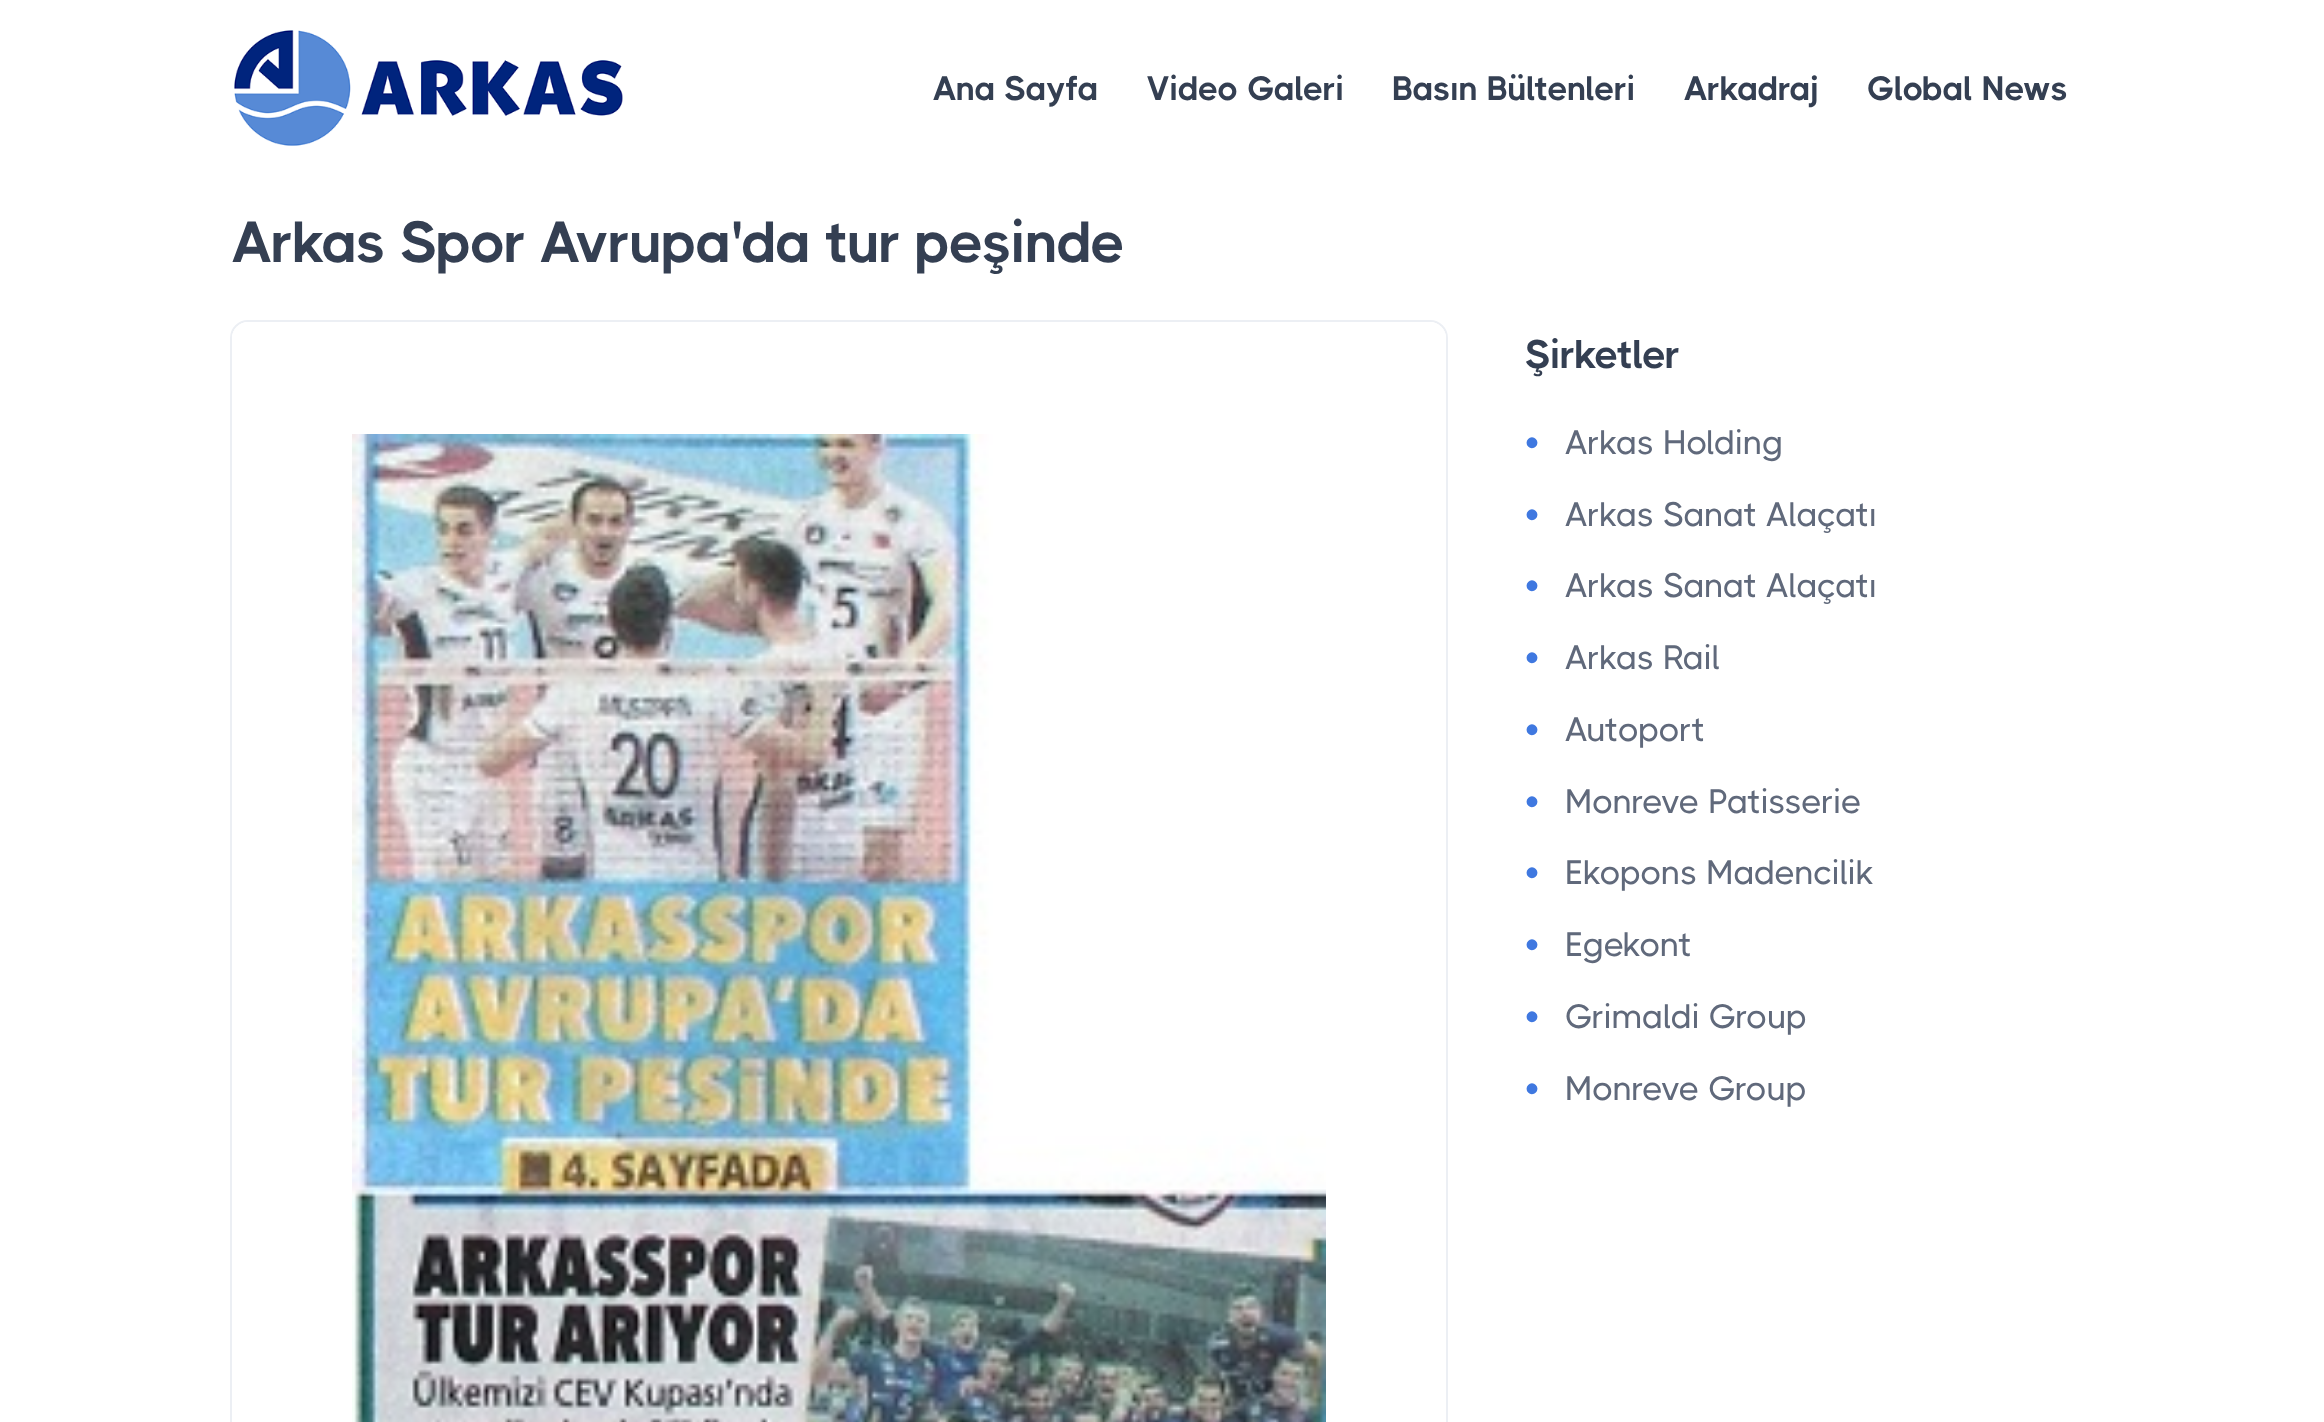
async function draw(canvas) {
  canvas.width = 2324;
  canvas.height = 1422;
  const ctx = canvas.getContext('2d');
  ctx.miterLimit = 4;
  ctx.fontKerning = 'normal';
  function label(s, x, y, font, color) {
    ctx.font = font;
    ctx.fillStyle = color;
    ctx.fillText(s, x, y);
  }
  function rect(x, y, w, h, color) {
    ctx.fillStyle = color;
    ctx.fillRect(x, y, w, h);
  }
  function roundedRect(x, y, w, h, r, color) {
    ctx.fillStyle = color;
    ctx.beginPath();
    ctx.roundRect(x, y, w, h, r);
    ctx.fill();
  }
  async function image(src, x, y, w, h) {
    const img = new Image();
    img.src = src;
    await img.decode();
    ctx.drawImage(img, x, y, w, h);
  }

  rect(0, 0, 2324, 1422, '#fff');
  await image('assets/img1.png', 234, 30, 389, 116);
  label('Ana Sayfa', 933, 100, 'bold 34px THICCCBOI', '#343f52');
  label('Video Galeri', 1147, 100, 'bold 34px THICCCBOI', '#343f52');
  label('Basın Bültenleri', 1392, 100, 'bold 34px THICCCBOI', '#343f52');
  label('Arkadraj', 1684, 100, 'bold 34px THICCCBOI', '#343f52');
  label('Global News', 1867, 100, 'bold 34px THICCCBOI', '#343f52');
  ctx.letterSpacing = '-0.4px';
  label('Arkas Spor Avrupa\'da tur peşinde', 232, 262, 'bold 58px THICCCBOI', '#343f52');
  ctx.beginPath();
  ctx.roundRect(231, 321, 1216, 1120, 17);
  ctx.strokeStyle = '#eceff4';
  ctx.lineWidth = 2;
  ctx.stroke();
  roundedRect(232, 322, 1214, 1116, 16, '#fff');
  await image('assets/img2.png', 352, 434, 974, 988);
  label('Şirketler', 1525, 368, 'bold 40px THICCCBOI', '#343f52');
  ctx.letterSpacing = '0px';
  label('•', 1525, 456, '40px Liberation Sans', '#3f78e0');
  label('Arkas Holding', 1565, 454, '500 34px THICCCBOI', '#60697b');
  label('•', 1525, 528, '40px Liberation Sans', '#3f78e0');
  label('Arkas Sanat Alaçatı', 1565, 526, '500 34px THICCCBOI', '#60697b');
  label('•', 1525, 599, '40px Liberation Sans', '#3f78e0');
  label('Arkas Sanat Alaçatı', 1565, 597, '500 34px THICCCBOI', '#60697b');
  label('•', 1525, 671, '40px Liberation Sans', '#3f78e0');
  label('Arkas Rail', 1565, 669, '500 34px THICCCBOI', '#60697b');
  label('•', 1525, 743, '40px Liberation Sans', '#3f78e0');
  label('Autoport', 1565, 741, '500 34px THICCCBOI', '#60697b');
  label('•', 1525, 815, '40px Liberation Sans', '#3f78e0');
  label('Monreve Patisserie', 1565, 813, '500 34px THICCCBOI', '#60697b');
  label('•', 1525, 886, '40px Liberation Sans', '#3f78e0');
  label('Ekopons Madencilik', 1565, 884, '500 34px THICCCBOI', '#60697b');
  label('•', 1525, 958, '40px Liberation Sans', '#3f78e0');
  label('Egekont', 1565, 956, '500 34px THICCCBOI', '#60697b');
  label('•', 1525, 1030, '40px Liberation Sans', '#3f78e0');
  label('Grimaldi Group', 1565, 1028, '500 34px THICCCBOI', '#60697b');
  label('•', 1525, 1102, '40px Liberation Sans', '#3f78e0');
  label('Monreve Group', 1565, 1100, '500 34px THICCCBOI', '#60697b');
}

draw(document.querySelector('canvas'));
